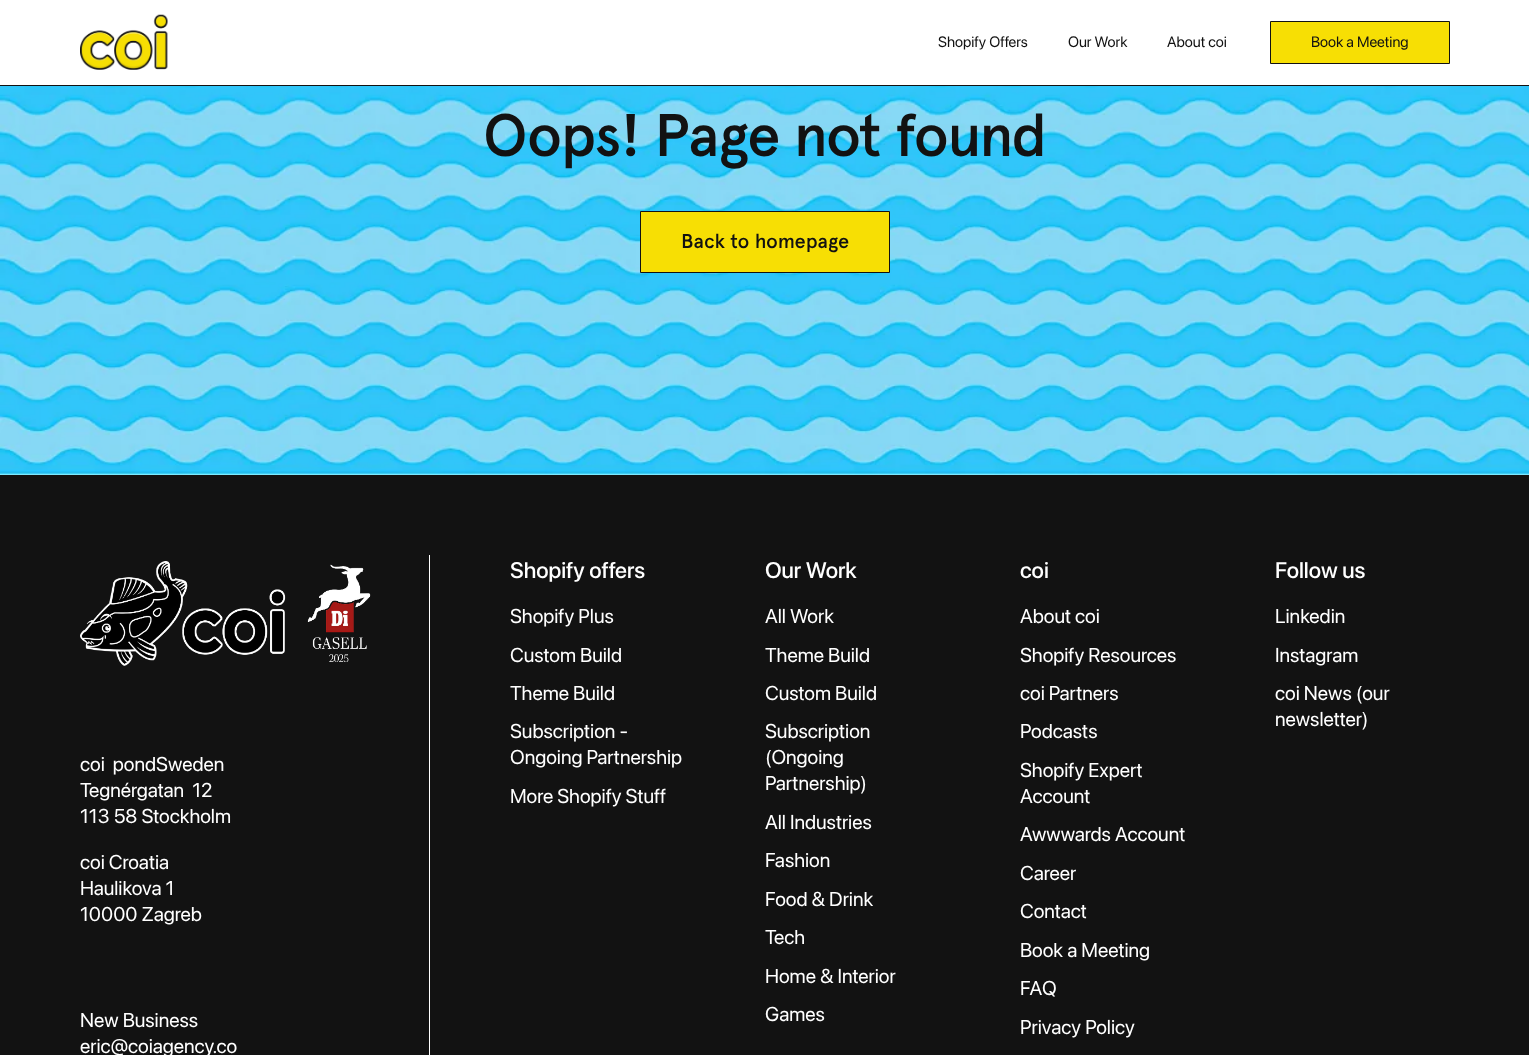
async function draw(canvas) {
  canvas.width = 1529;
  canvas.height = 1055;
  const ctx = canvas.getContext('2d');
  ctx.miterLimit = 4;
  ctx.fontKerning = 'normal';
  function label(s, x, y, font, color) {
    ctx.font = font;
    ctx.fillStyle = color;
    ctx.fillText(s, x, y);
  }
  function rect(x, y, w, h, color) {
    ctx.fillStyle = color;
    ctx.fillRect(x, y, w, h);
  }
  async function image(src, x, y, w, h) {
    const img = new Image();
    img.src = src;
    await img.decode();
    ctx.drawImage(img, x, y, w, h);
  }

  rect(0, 0, 1529, 1055, '#fff');
  rect(0, 85, 1529, 1, '#121212');
  await image('assets/img1.png', 80, 14, 88, 56);
  label('Shopify Offers', 938, 47, '15px SF Pro Display', '#121212');
  label('Our Work', 1068, 47, '15px SF Pro Display', '#121212');
  label('About coi', 1167, 47, '15px SF Pro Display', '#121212');
  ctx.fillStyle = '#f7df04';
  ctx.beginPath();
  ctx.rect(1270.5, 21.5, 179, 42);
  ctx.fill();
  ctx.strokeStyle = '#121212';
  ctx.stroke();
  label('Book a Meeting', 1311, 47, '15px SF Pro Display', '#121212');
  await image('assets/img2.png', 0, 86, 1529, 389);
  ctx.letterSpacing = '-1.2px';
  label('Oops! Page not found', 483, 156, '500 60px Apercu', '#121212');
  ctx.fillStyle = '#f7df04';
  ctx.beginPath();
  ctx.rect(640.5, 211.5, 249, 61);
  ctx.fill();
  ctx.stroke();
  ctx.letterSpacing = '0px';
  label('Back to homepage', 681, 248, '500 20px Apercu', '#121212');
  rect(0, 475, 1529, 580, '#121212');
  label('Shopify offers', 510, 578, '500 22.5px SF Pro Display', '#fff');
  label('Shopify Plus', 510, 623, '20px SF Pro Display', '#fff');
  label('Custom Build', 510, 662, '20px SF Pro Display', '#fff');
  label('Theme Build', 510, 700, '20px SF Pro Display', '#fff');
  label('Subscription -', 510, 738, '20px SF Pro Display', '#fff');
  label('Ongoing Partnership', 510, 764, '20px SF Pro Display', '#fff');
  label('More Shopify Stuff', 510, 803, '20px SF Pro Display', '#fff');
  label('Our Work', 765, 578, '500 22.5px SF Pro Display', '#fff');
  label('All Work', 765, 623, '20px SF Pro Display', '#fff');
  label('Theme Build', 765, 662, '20px SF Pro Display', '#fff');
  label('Custom Build', 765, 700, '20px SF Pro Display', '#fff');
  label('Subscription', 765, 738, '20px SF Pro Display', '#fff');
  label('(Ongoing', 765, 764, '20px SF Pro Display', '#fff');
  label('Partnership)', 765, 790, '20px SF Pro Display', '#fff');
  label('All Industries', 765, 829, '20px SF Pro Display', '#fff');
  label('Fashion', 765, 867, '20px SF Pro Display', '#fff');
  label('Food & Drink', 765, 906, '20px SF Pro Display', '#fff');
  label('Tech', 765, 944, '20px SF Pro Display', '#fff');
  label('Home & Interior', 765, 983, '20px SF Pro Display', '#fff');
  label('Games', 765, 1021, '20px SF Pro Display', '#fff');
  label('coi', 1020, 578, '500 22.5px SF Pro Display', '#fff');
  label('About coi', 1020, 623, '20px SF Pro Display', '#fff');
  label('Shopify Resources', 1020, 662, '20px SF Pro Display', '#fff');
  label('coi Partners', 1020, 700, '20px SF Pro Display', '#fff');
  label('Podcasts', 1020, 738, '20px SF Pro Display', '#fff');
  label('Shopify Expert', 1020, 777, '20px SF Pro Display', '#fff');
  label('Account', 1020, 803, '20px SF Pro Display', '#fff');
  label('Awwwards Account', 1020, 841, '20px SF Pro Display', '#fff');
  label('Career', 1020, 880, '20px SF Pro Display', '#fff');
  label('Contact', 1020, 918, '20px SF Pro Display', '#fff');
  label('Book a Meeting', 1020, 957, '20px SF Pro Display', '#fff');
  label('FAQ', 1020, 995, '20px SF Pro Display', '#fff');
  label('Privacy Policy', 1020, 1034, '20px SF Pro Display', '#fff');
  label('Follow us', 1275, 578, '500 22.5px SF Pro Display', '#fff');
  label('Linkedin', 1275, 623, '20px SF Pro Display', '#fff');
  label('Instagram', 1275, 662, '20px SF Pro Display', '#fff');
  label('coi News (our', 1275, 700, '20px SF Pro Display', '#fff');
  label('newsletter)', 1275, 726, '20px SF Pro Display', '#fff');
  rect(429, 555, 1, 500, '#fff');
  await image('assets/img3.png', 80, 561, 291, 105);
  ctx.wordSpacing = '4px';
  label('coi pondSweden', 80, 771, '20px SF Pro Display', '#fff');
  label('Tegnérgatan 12', 80, 797, '20px SF Pro Display', '#fff');
  ctx.wordSpacing = '0px';
  label('113 58 Stockholm', 80, 823, '20px SF Pro Display', '#fff');
  label('coi Croatia', 80, 869, '20px SF Pro Display', '#fff');
  label('Haulikova 1', 80, 895, '20px SF Pro Display', '#fff');
  label('10000 Zagreb', 80, 921, '20px SF Pro Display', '#fff');
  label('New Business', 80, 1027, '20px SF Pro Display', '#fff');
  label('eric@coiagency.co', 80, 1053, '20px SF Pro Display', '#fff');
}

draw(document.querySelector('canvas'));
